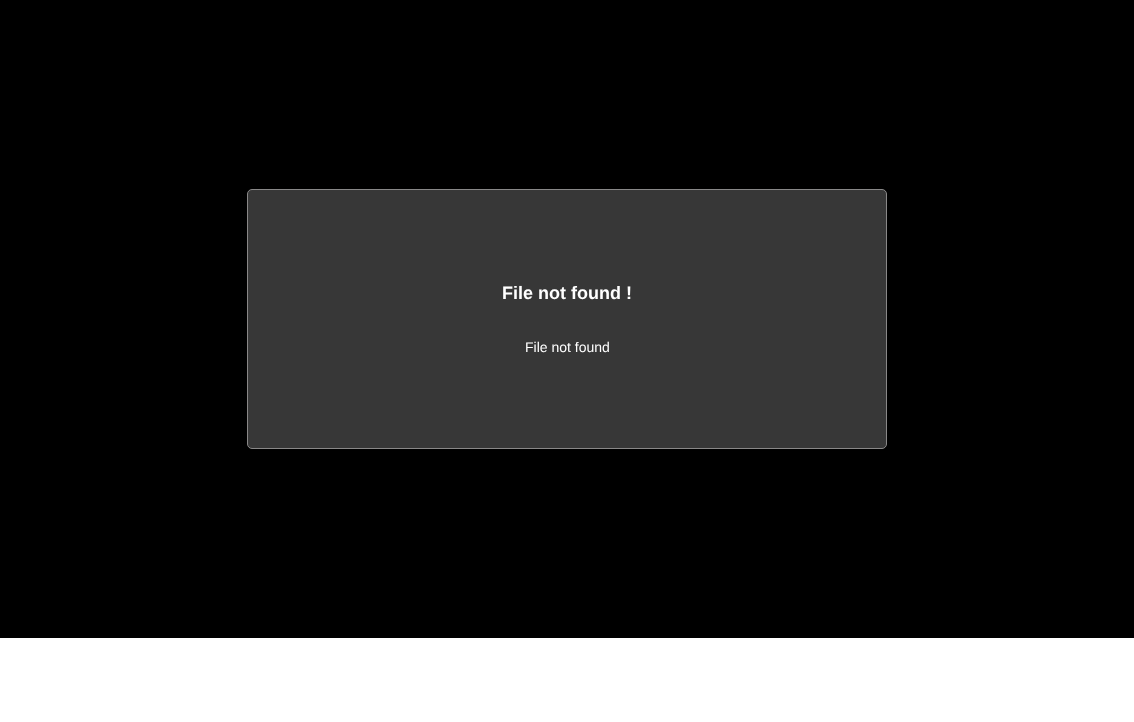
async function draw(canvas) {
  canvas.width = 1134;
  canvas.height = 722;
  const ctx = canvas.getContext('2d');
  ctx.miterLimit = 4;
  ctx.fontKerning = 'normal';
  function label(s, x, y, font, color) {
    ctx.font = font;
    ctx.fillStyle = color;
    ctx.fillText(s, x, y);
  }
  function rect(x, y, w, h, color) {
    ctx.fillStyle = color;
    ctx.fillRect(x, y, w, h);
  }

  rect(0, 0, 1134, 722, '#fff');
  rect(0, 0, 1134, 638, '#000');
  ctx.fillStyle = '#373737';
  ctx.beginPath();
  ctx.roundRect(247.5, 189.5, 639, 259, 4.5);
  ctx.fill();
  ctx.strokeStyle = '#898888';
  ctx.stroke();
  label('File not found !', 502, 299, 'bold 18px Liberation Sans', '#fff');
  label('File not found', 525, 352, '14px Liberation Sans', '#fff');
}

draw(document.querySelector('canvas'));
